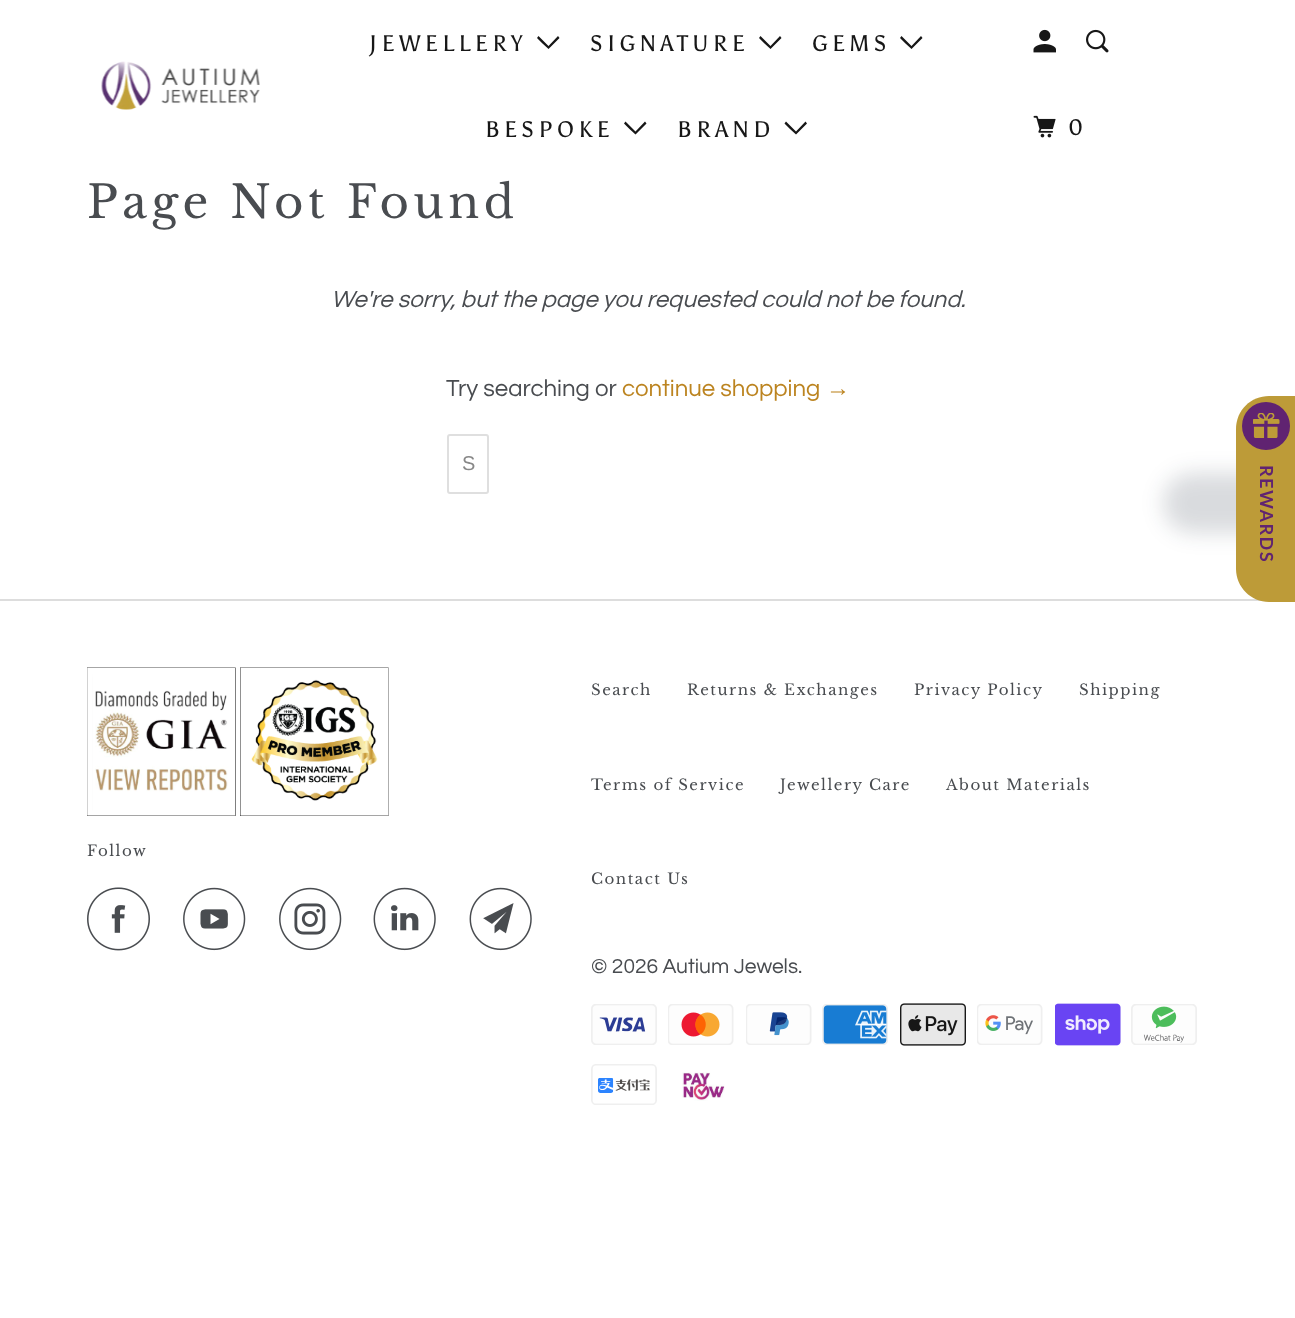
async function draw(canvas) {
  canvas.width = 1295;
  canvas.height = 1318;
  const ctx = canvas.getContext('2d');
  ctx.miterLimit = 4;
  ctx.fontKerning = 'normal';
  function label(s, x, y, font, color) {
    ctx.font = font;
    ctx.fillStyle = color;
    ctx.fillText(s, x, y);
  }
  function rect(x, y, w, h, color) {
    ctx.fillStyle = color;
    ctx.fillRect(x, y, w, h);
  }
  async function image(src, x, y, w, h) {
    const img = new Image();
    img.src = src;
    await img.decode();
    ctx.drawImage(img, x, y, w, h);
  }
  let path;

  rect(0, 0, 1295, 1318, '#fff');
  await image('assets/img1.png', 101, 61, 159, 49);
  ctx.letterSpacing = '4.5px';
  label('JEWELLERY', 369, 51, '22.5px Asul', '#171717');
  path = new Path2D('M542.5 43.5L537 38L538.5 36L548.5 46L558 36L559.5 38L548.5 49Z');
  ctx.fill(path);
  label('SIGNATURE', 590, 51, '22.5px Asul', '#171717');
  path = new Path2D('M764.5 43.5L759 38L760.5 36L770.5 46L780 36L781.5 38L770.5 49Z');
  ctx.fill(path);
  label('GEMS', 812, 51, '22.5px Asul', '#171717');
  path = new Path2D('M905.5 43.5L900 38L901.5 36L911.5 46L921 36L922.5 38L911.5 49Z');
  ctx.fill(path);
  label('BESPOKE', 485, 137, '22.5px Asul', '#171717');
  path = new Path2D('M629.5 129L624 123.5L625.5 121.5L635.5 131.5L645 121.5L646.5 123.5L635.5 134.5Z');
  ctx.fill(path);
  label('BRAND', 677, 137, '22.5px Asul', '#171717');
  path = new Path2D('M790 129L784.5 123.5L786 121.5L796 131.5L805.5 121.5L807 123.5L796 134.5Z');
  ctx.fill(path);
  await image('assets/img2.png', 1033, 29, 23, 24);
  await image('assets/img3.png', 1086, 29, 23, 24);
  await image('assets/img4.png', 1033, 115, 23, 23);
  label('0', 1068, 135, '22.5px Asul', '#171717');
  label('Page Not Found', 87, 218, '45px Libre Baskerville', '#494c50');
  ctx.letterSpacing = '0px';
  label('We\'re sorry, but the page you requested could not be found.', 331, 307, 'italic 24px Questrial', '#494c50');
  label('Try searching or', 446, 396, '24px Questrial', '#494c50');
  label('continue shopping', 622, 396, '24px Questrial', '#bc8420');
  label('→', 826, 396, '24px Liberation Sans', '#bc8420');
  ctx.beginPath();
  ctx.roundRect(448, 435, 40, 58, 2);
  ctx.strokeStyle = '#dfdfdf';
  ctx.lineWidth = 2;
  ctx.stroke();
  label('S', 462, 470, '20px Liberation Sans', '#888');
  rect(0, 599, 1261, 2, '#ddd');
  await image('assets/img5.png', 87, 667, 149, 149);
  await image('assets/img6.png', 240, 667, 149, 149);
  ctx.letterSpacing = '1.5px';
  label('Follow', 87, 856, '15px Libre Baskerville', '#494c50');
  await image('assets/img7.png', 87, 887, 63, 64);
  await image('assets/img8.png', 183, 887, 63, 64);
  await image('assets/img9.png', 279, 887, 63, 64);
  await image('assets/img10.png', 373, 887, 63, 64);
  await image('assets/img11.png', 469, 887, 63, 64);
  label('Search', 591, 695, '15px Libre Baskerville', '#494c50');
  label('Returns & Exchanges', 687, 695, '15px Libre Baskerville', '#494c50');
  label('Privacy Policy', 914, 695, '15px Libre Baskerville', '#494c50');
  label('Shipping', 1079, 695, '15px Libre Baskerville', '#494c50');
  label('Terms of Service', 591, 790, '15px Libre Baskerville', '#494c50');
  label('Jewellery Care', 780, 790, '15px Libre Baskerville', '#494c50');
  label('About Materials', 946, 790, '15px Libre Baskerville', '#494c50');
  label('Contact Us', 591, 884, '15px Libre Baskerville', '#494c50');
  ctx.letterSpacing = '0px';
  label('© 2026 Autium Jewels.', 591, 973, '21px Questrial', '#494c50');
  await image('assets/img12.png', 591, 1004, 66, 41);
  await image('assets/img13.png', 668, 1004, 66, 41);
  await image('assets/img14.png', 746, 1004, 66, 41);
  await image('assets/img15.png', 822, 1004, 66, 41);
  await image('assets/img16.png', 900, 1003, 66, 43);
  await image('assets/img17.png', 977, 1004, 66, 41);
  await image('assets/img18.png', 1055, 1003, 66, 43);
  await image('assets/img19.png', 1131, 1004, 66, 41);
  await image('assets/img20.png', 591, 1064, 66, 41);
  await image('assets/img21.png', 682, 1072, 43, 29);
  ctx.fillStyle = '#11223329';
  ctx.filter = 'blur(10.5px)';
  ctx.beginPath();
  ctx.roundRect(1163, 473, 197, 60, 33);
  ctx.fill();
  ctx.filter = 'none';
  ctx.fillStyle = '#bd9b38';
  path = new Path2D('M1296 396V602H1269C1251 602 1236 587 1236 569V429C1236 410 1251 396 1269 396Z');
  ctx.fill(path);
  ctx.fillStyle = '#602371';
  ctx.beginPath();
  ctx.arc(1266, 426, 24, 0, 2 * Math.PI);
  ctx.fill();
  await image('assets/img22.png', 1253, 413, 27, 25);
  ctx.letterSpacing = '1.5px';
  ctx.font = 'bold 18px Lato';
  ctx.save();
  ctx.translate(1260, 465);
  ctx.rotate(90 * Math.PI / 180);
  ctx.fillText('REWARDS', 0, 0);
  ctx.restore();
}

draw(document.querySelector('canvas'));
